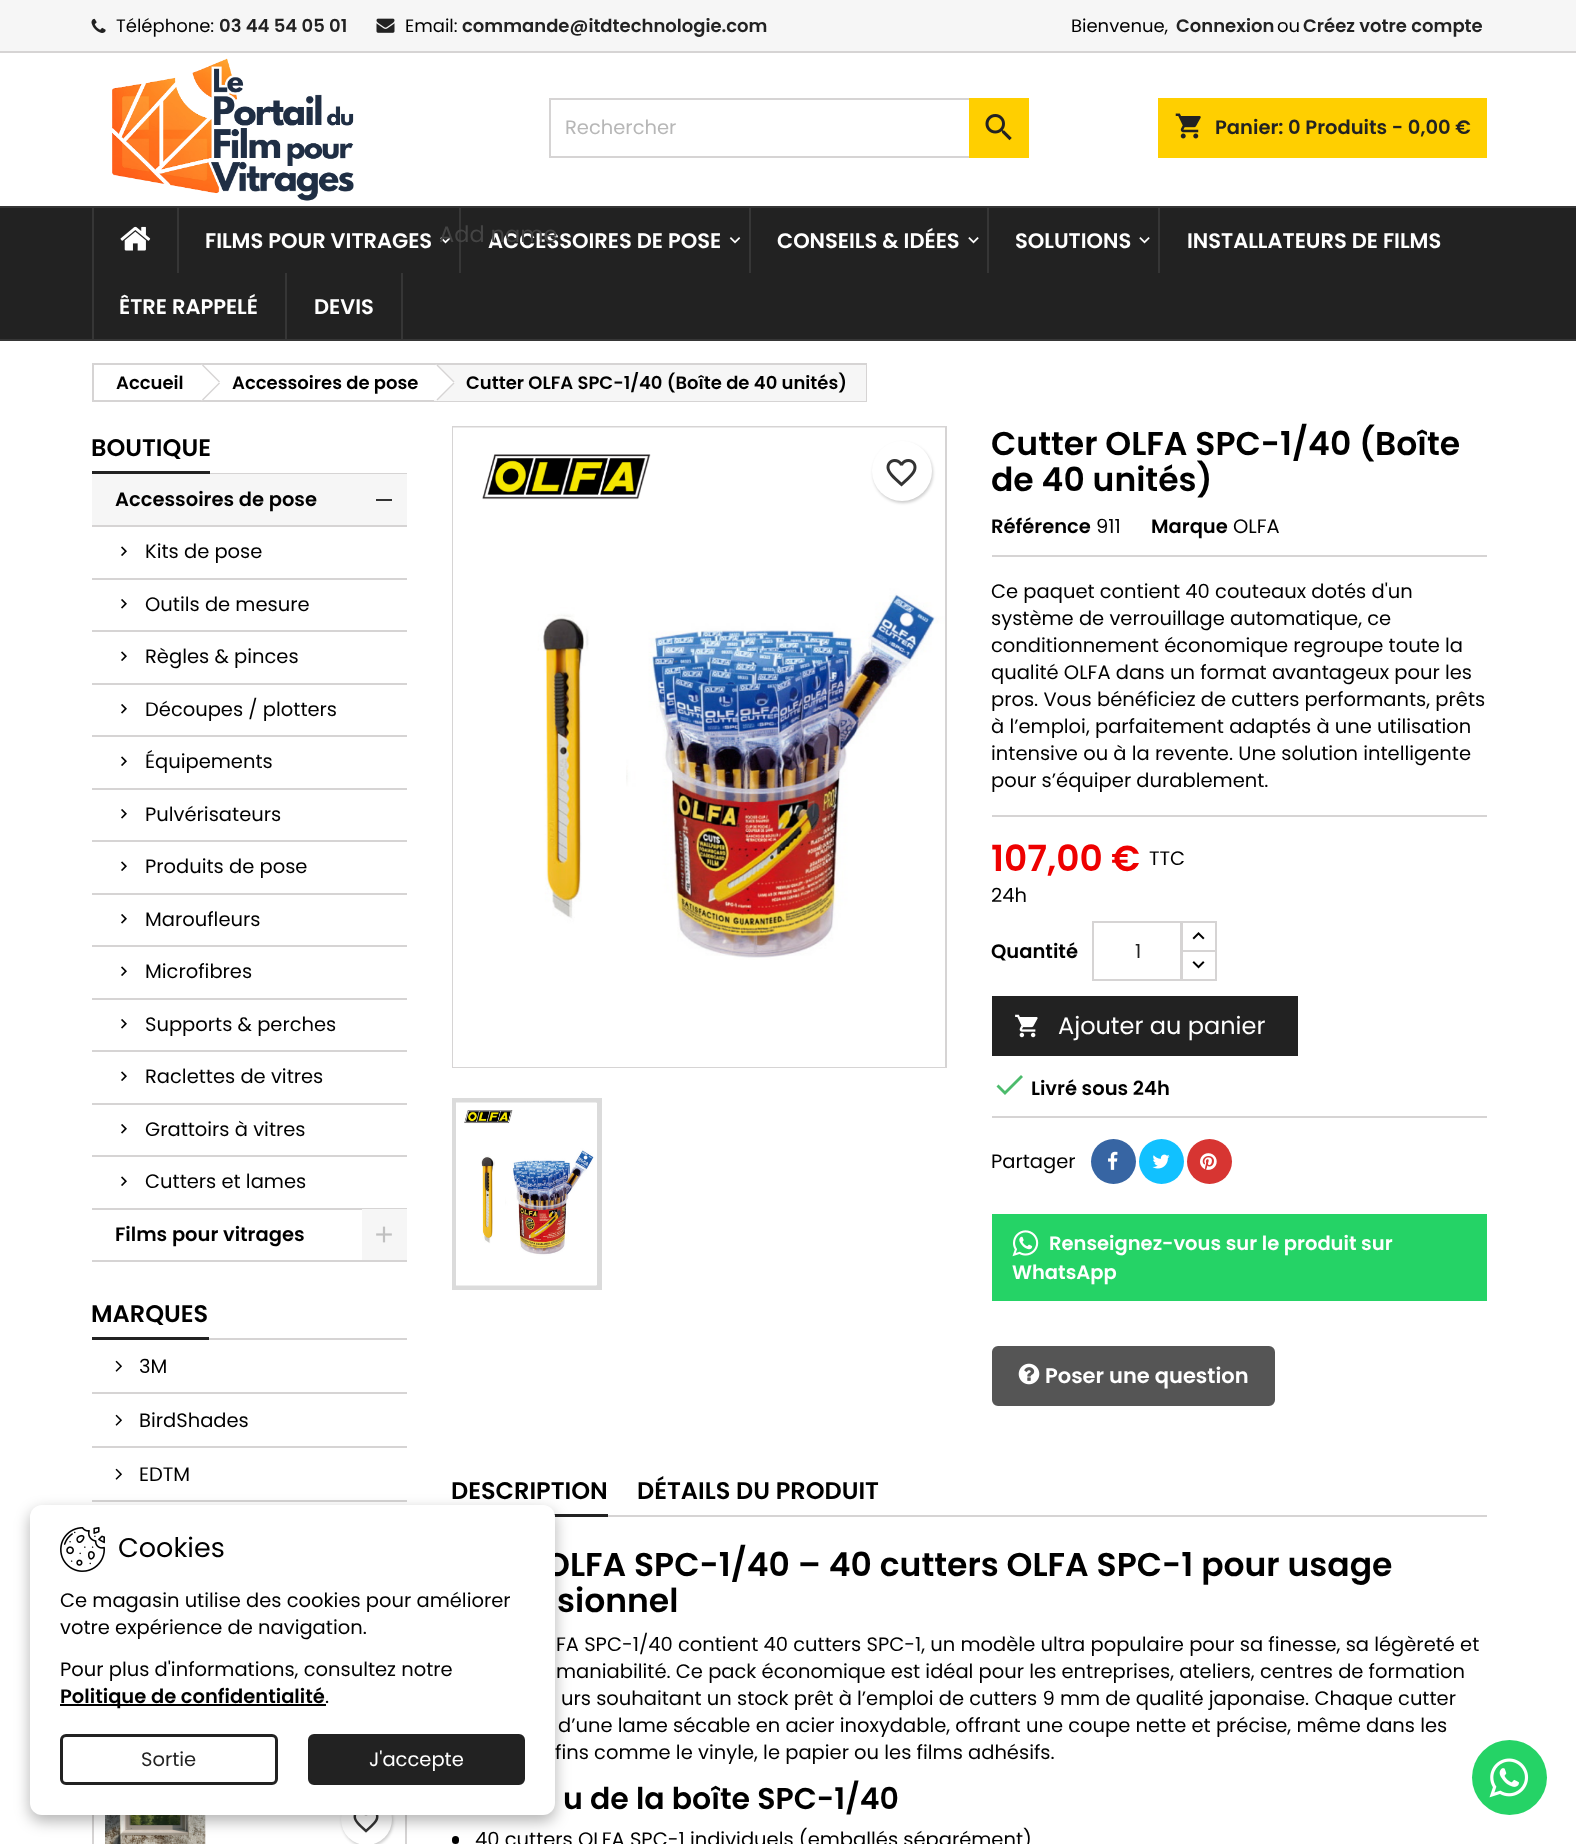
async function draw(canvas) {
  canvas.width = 1576;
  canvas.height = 1844;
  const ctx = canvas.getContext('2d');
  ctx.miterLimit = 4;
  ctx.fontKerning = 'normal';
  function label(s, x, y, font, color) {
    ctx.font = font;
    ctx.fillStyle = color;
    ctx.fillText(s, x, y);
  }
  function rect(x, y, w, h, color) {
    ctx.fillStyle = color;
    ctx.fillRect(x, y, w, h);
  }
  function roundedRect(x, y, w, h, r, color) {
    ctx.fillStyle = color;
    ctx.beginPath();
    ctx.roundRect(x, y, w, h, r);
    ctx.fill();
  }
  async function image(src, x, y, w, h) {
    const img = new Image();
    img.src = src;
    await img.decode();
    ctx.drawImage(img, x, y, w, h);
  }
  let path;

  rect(0, 0, 1576, 1844, '#fff');
  rect(0, 0, 1576, 51, '#f6f6f6');
  rect(0, 51, 1576, 2, '#d6d4d4');
  await image('assets/img1.png', 91, 18, 15, 15);
  label('Téléphone:', 116, 32, '18px Poppins', '#000');
  label('03 44 54 05 01', 219, 32, '600 18px Poppins', '#222');
  await image('assets/img2.png', 376, 18, 19, 15);
  label('Email:', 405, 32, '18px Poppins', '#000');
  label('commande@itdtechnologie.com', 462, 32, '600 18px Poppins', '#222');
  label('Bienvenue,', 1071, 32, '18px Poppins', '#000');
  label('Connexion', 1176, 32, '600 18px Poppins', '#222');
  label('ou', 1277, 32, '18px Poppins', '#000');
  label('Créez votre compte', 1303, 32, '600 18px Poppins', '#222');
  await image('assets/img3.png', 112, 58, 242, 143);
  ctx.strokeStyle = '#d6d4d4';
  ctx.lineWidth = 2;
  ctx.strokeRect(550, 99, 478, 58);
  label('Rechercher', 565, 134, '19.5px Poppins', '#b7b7b7');
  rect(969, 98, 60, 60, '#ffcf00');
  await image('assets/img4.png', 985, 114, 27, 27);
  rect(1158, 98, 329, 60, '#ffcf00');
  await image('assets/img5.png', 1175, 113, 26, 26);
  label('Panier: 0 Produits - 0,00 €', 1215, 134, '600 19.5px Poppins', '#222');
  rect(0, 208, 1576, 131, '#222');
  rect(0, 206, 1576, 2, '#363636');
  rect(0, 339, 1576, 2, '#363636');
  rect(92, 207, 2, 132, '#363636');
  await image('assets/img6.png', 120, 226, 31, 25);
  rect(177, 207, 2, 66, '#363636');
  label('FILMS POUR VITRAGES', 205, 248, '600 21px Poppins', '#fff');
  await image('assets/img7.png', 440, 237, 11, 7);
  rect(459, 207, 2, 66, '#363636');
  label('ACCESSOIRES DE POSE', 488, 248, '600 21px Poppins', '#fff');
  await image('assets/img8.png', 729, 237, 12, 7);
  rect(749, 207, 2, 66, '#363636');
  label('CONSEILS & IDÉES', 777, 248, '600 21px Poppins', '#fff');
  await image('assets/img7.png', 968, 237, 11, 7);
  rect(987, 207, 2, 66, '#363636');
  label('SOLUTIONS', 1015, 248, '600 21px Poppins', '#fff');
  await image('assets/img7.png', 1139, 237, 11, 7);
  rect(1158, 207, 2, 66, '#363636');
  label('INSTALLATEURS DE FILMS', 1187, 248, '600 21px Poppins', '#fff');
  label('ÊTRE RAPPELÉ', 119, 314, '600 21px Poppins', '#fff');
  rect(401, 273, 2, 66, '#363636');
  rect(285, 273, 2, 66, '#363636');
  label('DEVIS', 314, 314, '600 21px Poppins', '#fff');
  label('Add name', 439, 242, '22.5px Poppins', '#444');
  rect(92, 1500, 315, 2, '#d6d4d4');
  ctx.strokeRect(93, 1704, 313, 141);
  await image('assets/img15.png', 105, 1815, 101, 29);
  ctx.fillStyle = '#00000033';
  ctx.filter = 'blur(1.5px)';
  ctx.beginPath();
  ctx.roundRect(342, 1796, 51, 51, 25.5);
  ctx.fill();
  ctx.filter = 'none';
  ctx.fillStyle = '#fff';
  ctx.beginPath();
  ctx.arc(366.5, 1819.5, 25.5, 0, 2 * Math.PI);
  ctx.fill();
  await image('assets/img16.png', 353, 1815, 26, 18);
  rect(554, 1514, 54, 3, '#222');
  roundedRect(452, 1836, 7, 8, 3.5, '#000');
  ctx.fillStyle = '#0000004d';
  ctx.filter = 'blur(7.5px)';
  ctx.beginPath();
  ctx.roundRect(30, 1511, 525, 310, 12);
  ctx.fill();
  ctx.filter = 'none';
  label('OLFA SPC-1/40 – 40 cutters OLFA SPC-1 pour usage', 544, 1576, '600 33px Poppins', '#000');
  roundedRect(30, 1505, 525, 310, 12, '#fff');
  await image('assets/img9.png', 60, 1527, 45, 45);
  label('Cookies', 118, 1557, '27px Poppins', '#000');
  label('Ce magasin utilise des cookies pour améliorer', 60, 1607, '19.5px Poppins', '#000');
  label('votre expérience de navigation.', 60, 1634, '19.5px Poppins', '#000');
  label('Pour plus d\'informations, consultez notre', 60, 1676, '19.5px Poppins', '#000');
  rect(60, 1704, 266, 2, '#000');
  label('Politique de confidentialité', 60, 1703, '600 19.5px Poppins', '#000');
  label('.', 325, 1703, '19.5px Poppins', '#000');
  ctx.beginPath();
  ctx.roundRect(61.5, 1735.5, 215, 48, 4.5);
  ctx.strokeStyle = '#222';
  ctx.lineWidth = 3;
  ctx.stroke();
  label('Sortie', 141, 1766, '19.5px Poppins', '#222');
  ctx.beginPath();
  ctx.roundRect(309.5, 1735.5, 214, 48, 4.5);
  ctx.fill();
  ctx.stroke();
  label('J\'accepte', 369, 1766, '19.5px Poppins', '#fff');
  ctx.fillStyle = '#25d366';
  ctx.beginPath();
  ctx.arc(1509.5, 1777.5, 37.5, 0, 2 * Math.PI);
  ctx.fill();
  await image('assets/img10.png', 1489, 1758, 40, 40);
  ctx.strokeStyle = '#d6d4d4';
  ctx.lineWidth = 2;
  ctx.strokeRect(93, 364, 773, 37);
  label('Accueil', 116, 389, '600 18px Poppins', '#000');
  ctx.fillStyle = '#fff';
  path = new Path2D('M204 365.5L219 380.5C220 381.5 220 383.5 219 384.5L204 399.5C203 400.5 201 400.5 199.5 399.5L185 384.5C183.5 383.5 183.5 381.5 185 380.5L199.5 365.5C201 364.5 203 364.5 204 365.5Z');
  ctx.fill(path);
  ctx.fillStyle = '#d6d4d4';
  path = new Path2D('M203 364.5L220 381.5L219 382.5L202 365.5Z');
  ctx.fill(path);
  path = new Path2D('M219 382.5L220 383.5L203 400.5L202 399.5Z');
  ctx.fill(path);
  label('Accessoires de pose', 232, 389, '600 18px Poppins', '#000');
  rect(434, 365, 432, 36, '#f6f6f6');
  ctx.fillStyle = '#fff';
  path = new Path2D('M438.5 365.5L453.5 380.5C454.5 381.5 454.5 383.5 453.5 384.5L438.5 399.5C437 400.5 435.5 400.5 434 399.5L419.5 384.5C418 383.5 418 381.5 419.5 380.5L434 365.5C435.5 364.5 437 364.5 438.5 365.5Z');
  ctx.fill(path);
  ctx.fillStyle = '#d6d4d4';
  path = new Path2D('M437.5 364.5L454.5 381.5L453.5 382.5L436.5 365.5Z');
  ctx.fill(path);
  path = new Path2D('M453.5 382.5L454.5 383.5L437.5 400.5L436.5 399.5Z');
  ctx.fill(path);
  label('Cutter OLFA SPC-1/40 (Boîte de 40 unités)', 466, 389, '600 18px Poppins', '#000');
  rect(210, 473, 197, 1, '#d6d4d4');
  rect(92, 471, 118, 3, '#222');
  label('BOUTIQUE', 91, 456, '600 24px Poppins', '#000');
  rect(92, 474, 315, 51, '#f6f6f6');
  rect(92, 525, 315, 2, '#d6d4d4');
  label('Accessoires de pose', 115, 506, '600 19.5px Poppins', '#000');
  rect(376, 499, 16, 2, '#333');
  rect(92, 578, 315, 2, '#d6d4d4');
  await image('assets/img11.png', 121, 546, 6, 10);
  label('Kits de pose', 145, 558, '19.5px Poppins', '#000');
  rect(92, 630, 315, 2, '#d6d4d4');
  await image('assets/img12.png', 121, 599, 6, 10);
  label('Outils de mesure', 145, 611, '19.5px Poppins', '#000');
  rect(92, 683, 315, 2, '#d6d4d4');
  await image('assets/img11.png', 121, 651, 6, 10);
  label('Règles & pinces', 145, 663, '19.5px Poppins', '#000');
  rect(92, 735, 315, 2, '#d6d4d4');
  await image('assets/img12.png', 121, 704, 6, 10);
  label('Découpes / plotters', 145, 716, '19.5px Poppins', '#000');
  rect(92, 788, 315, 2, '#d6d4d4');
  await image('assets/img11.png', 121, 756, 6, 10);
  label('Équipements', 145, 768, '19.5px Poppins', '#000');
  rect(92, 840, 315, 2, '#d6d4d4');
  await image('assets/img12.png', 121, 809, 6, 10);
  label('Pulvérisateurs', 145, 821, '19.5px Poppins', '#000');
  rect(92, 893, 315, 2, '#d6d4d4');
  await image('assets/img11.png', 121, 861, 6, 10);
  label('Produits de pose', 145, 873, '19.5px Poppins', '#000');
  rect(92, 945, 315, 2, '#d6d4d4');
  await image('assets/img12.png', 121, 914, 6, 10);
  label('Maroufleurs', 145, 926, '19.5px Poppins', '#000');
  rect(92, 998, 315, 2, '#d6d4d4');
  await image('assets/img11.png', 121, 966, 6, 10);
  label('Microfibres', 145, 978, '19.5px Poppins', '#000');
  rect(92, 1050, 315, 2, '#d6d4d4');
  await image('assets/img12.png', 121, 1019, 6, 10);
  label('Supports & perches', 145, 1031, '19.5px Poppins', '#000');
  rect(92, 1103, 315, 2, '#d6d4d4');
  await image('assets/img11.png', 121, 1071, 6, 10);
  label('Raclettes de vitres', 145, 1083, '19.5px Poppins', '#000');
  rect(92, 1155, 315, 2, '#d6d4d4');
  await image('assets/img12.png', 121, 1124, 6, 10);
  label('Grattoirs à vitres', 145, 1136, '19.5px Poppins', '#000');
  rect(92, 1208, 315, 2, '#d6d4d4');
  await image('assets/img11.png', 121, 1176, 6, 10);
  label('Cutters et lames', 145, 1188, '19.5px Poppins', '#000');
  rect(92, 1260, 315, 2, '#d6d4d4');
  label('Films pour vitrages', 115, 1241, '600 19.5px Poppins', '#000');
  rect(362, 1209, 45, 51, '#f6f6f6');
  await image('assets/img13.png', 376, 1226, 16, 17);
  rect(209, 1338, 198, 2, '#d6d4d4');
  rect(92, 1337, 117, 3, '#222');
  label('MARQUES', 91, 1322, '600 24px Poppins', '#000');
  rect(92, 1392, 315, 2, '#d6d4d4');
  await image('assets/img14.png', 115, 1360, 7, 12);
  label('3M', 139, 1373, '19.5px Poppins', '#000');
  rect(92, 1446, 315, 2, '#d6d4d4');
  await image('assets/img14.png', 115, 1414, 7, 12);
  label('BirdShades', 139, 1427, '19.5px Poppins', '#000');
  await image('assets/img14.png', 115, 1468, 7, 12);
  label('EDTM', 139, 1481, '19.5px Poppins', '#000');
  ctx.strokeRect(453, 427, 493, 640);
  await image('assets/img17.png', 453, 427, 492, 533);
  rect(453, 960, 492, 107, '#fff');
  ctx.strokeStyle = '#dbdbdb';
  ctx.lineWidth = 5;
  ctx.strokeRect(454.5, 1100.5, 145, 187);
  await image('assets/img18.png', 456, 1102, 141, 184);
  label('Cutter OLFA SPC-1/40 (Boîte', 991, 455, '600 33px Poppins', '#000');
  label('de 40 unités)', 991, 491, '600 33px Poppins', '#000');
  label('Référence', 991, 533, '600 19.5px Poppins', '#000');
  label('911', 1096, 533, '19.5px Poppins', '#000');
  label('Marque', 1151, 533, '600 19.5px Poppins', '#000');
  label('OLFA', 1233, 533, '19.5px Poppins', '#000');
  rect(992, 555, 495, 2, '#d6d4d4');
  label('Ce paquet contient 40 couteaux dotés d\'un', 991, 598, '19.5px Poppins', '#000');
  label('système de verrouillage automatique, ce', 991, 625, '19.5px Poppins', '#000');
  label('conditionnement économique regroupe toute la', 991, 652, '19.5px Poppins', '#000');
  label('qualité OLFA dans un format avantageux pour les', 991, 679, '19.5px Poppins', '#000');
  label('pros. Vous bénéficiez de cutters performants, prêts', 991, 706, '19.5px Poppins', '#000');
  label('à l’emploi, parfaitement adaptés à une utilisation', 991, 733, '19.5px Poppins', '#000');
  label('intensive ou à la revente. Une solution intelligente', 991, 760, '19.5px Poppins', '#000');
  label('pour s’équiper durablement.', 991, 787, '19.5px Poppins', '#000');
  rect(992, 815, 495, 2, '#d6d4d4');
  label('107,00 €', 991, 871, '600 36px Poppins', '#e00');
  label('TTC', 1149, 865, '19.5px Poppins', '#000');
  label('24h', 991, 902, '19.5px Poppins', '#000');
  ctx.fillStyle = '#00000033';
  ctx.filter = 'blur(1.5px)';
  ctx.beginPath();
  ctx.roundRect(873, 443, 60, 60, 30);
  ctx.fill();
  ctx.filter = 'none';
  ctx.fillStyle = '#fff';
  ctx.beginPath();
  ctx.arc(902, 471, 30, 0, 2 * Math.PI);
  ctx.fill();
  await image('assets/img19.png', 886, 459, 31, 28);
  label('Quantité', 991, 958, '600 19.5px Poppins', '#000');
  ctx.strokeStyle = '#d6d4d4';
  ctx.lineWidth = 2;
  ctx.strokeRect(1182, 922, 34, 30);
  rect(1183, 952, 32, 1, '#fff');
  ctx.strokeRect(1182, 951, 34, 29);
  ctx.strokeRect(1093, 922, 88, 58);
  label('1', 1135, 958, '19.5px Poppins', '#222');
  await image('assets/img20.png', 1192, 932, 13, 8);
  await image('assets/img21.png', 1192, 961, 13, 8);
  rect(992, 996, 306, 60, '#222');
  await image('assets/img22.png', 1015, 1014, 23, 24);
  label('Ajouter au panier', 1058, 1034, '24px Poppins', '#fff');
  ctx.fillStyle = '#4cbb6c';
  path = new Path2D('M1005 1091L1021 1075L1023 1077L1005 1095L996.5 1086.5L998.5 1084.5Z');
  ctx.fill(path);
  label('Livré sous 24h', 1031, 1095, '600 19.5px Poppins', '#000');
  rect(992, 1116, 495, 2, '#d6d4d4');
  label('Partager', 991, 1168, '19.5px Poppins', '#000');
  ctx.fillStyle = '#3765a3';
  ctx.beginPath();
  ctx.arc(1113.5, 1161.5, 22.5, 0, 2 * Math.PI);
  ctx.fill();
  await image('assets/img23.png', 1108, 1151, 10, 19);
  ctx.fillStyle = '#11c1ff';
  ctx.beginPath();
  ctx.arc(1161.5, 1161.5, 22.5, 0, 2 * Math.PI);
  ctx.fill();
  await image('assets/img24.png', 1152, 1154, 18, 15);
  ctx.fillStyle = '#d73532';
  ctx.beginPath();
  ctx.arc(1209.5, 1161.5, 22.5, 0, 2 * Math.PI);
  ctx.fill();
  await image('assets/img25.png', 1200, 1153, 17, 17);
  rect(992, 1214, 495, 87, '#25d366');
  await image('assets/img26.png', 1012, 1230, 27, 27);
  label('Renseignez-vous sur le produit sur', 1049, 1250, '600 19.5px Poppins', '#fff');
  label('WhatsApp', 1012, 1279, '600 19.5px Poppins', '#fff');
  ctx.fillStyle = '#555';
  ctx.beginPath();
  ctx.roundRect(993, 1347, 281, 58, 5);
  ctx.fill();
  ctx.strokeStyle = '#555';
  ctx.stroke();
  await image('assets/img27.png', 1018, 1363, 22, 22);
  label('Poser une question', 1045, 1383, '600 21px Poppins', '#fff');
  rect(608, 1515, 879, 2, '#d6d4d4');
  label('DESCRIPTION', 451, 1499, '600 24px Poppins', '#000');
  label('DÉTAILS DU PRODUIT', 637, 1499, '600 24px Poppins', '#000');
  label('sionnel', 557, 1612, '600 33px Poppins', '#000');
  label('FA SPC-1/40 contient 40 cutters SPC-1, un modèle ultra populaire pour sa finesse, sa légèreté et', 556, 1651, '19.5px Poppins', '#000');
  label('maniabilité. Ce pack économique est idéal pour les entreprises, ateliers, centres de formation', 556, 1678, '19.5px Poppins', '#000');
  label('urs souhaitant un stock prêt à l’emploi de cutters 9 mm de qualité japonaise. Chaque cutter', 561, 1705, '19.5px Poppins', '#000');
  label('d’une lame sécable en acier inoxydable, offrant une coupe nette et précise, même dans les', 558, 1732, '19.5px Poppins', '#000');
  label('fins comme le vinyle, le papier ou les films adhésifs.', 555, 1759, '19.5px Poppins', '#000');
  label('u de la boîte SPC-1/40', 563, 1809, '600 30px Poppins', '#000');
  label('40 cutters OLFA SPC-1 individuels (emballés séparément)', 475, 1846, '19.5px Poppins', '#000');
}

draw(document.querySelector('canvas'));
